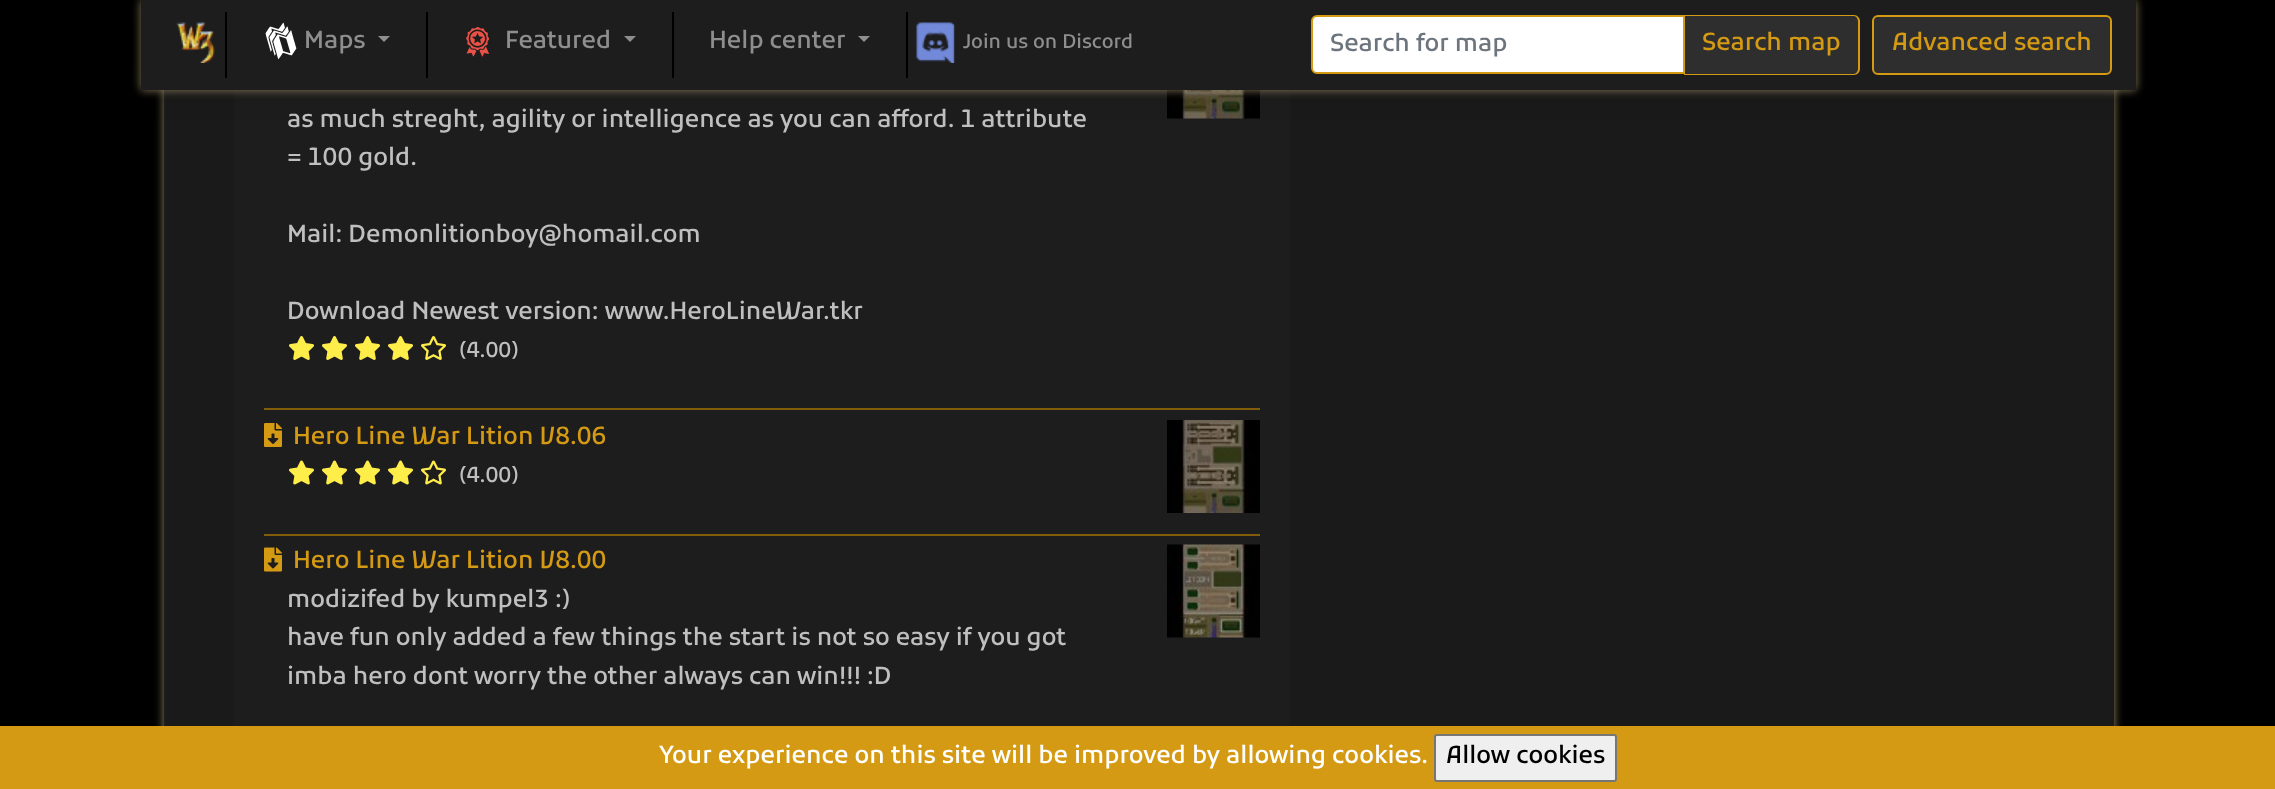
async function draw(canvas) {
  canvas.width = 2275;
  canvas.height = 789;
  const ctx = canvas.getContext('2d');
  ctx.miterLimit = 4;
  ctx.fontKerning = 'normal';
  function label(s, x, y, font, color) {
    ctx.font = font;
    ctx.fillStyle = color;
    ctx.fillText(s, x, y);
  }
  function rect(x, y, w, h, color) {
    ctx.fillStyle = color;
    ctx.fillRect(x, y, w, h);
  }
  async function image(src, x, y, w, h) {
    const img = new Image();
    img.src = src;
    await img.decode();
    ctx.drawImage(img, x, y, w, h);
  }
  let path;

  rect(0, 0, 2275, 789, '#000');
  ctx.save();
  path = new Path2D('M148 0H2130V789H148ZM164-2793H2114V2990H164Z');
  ctx.clip(path, 'evenodd');
  ctx.fillStyle = '#b09e73d6';
  ctx.filter = 'blur(5px)';
  ctx.beginPath();
  ctx.rect(164, -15, 1950, 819);
  ctx.fill();
  ctx.filter = 'none';
  ctx.restore();
  rect(166, 90, 1948, 636, '#1d1d1de6');
  ctx.fillStyle = '#1d1d1d';
  path = new Path2D('M174-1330H2114V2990H174C168 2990 164 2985 164 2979V-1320C164-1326 168-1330 174-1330ZM174-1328H2114V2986H174C170 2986 166 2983 166 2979V-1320C166-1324 170-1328 174-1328Z');
  ctx.fill(path, 'evenodd');
  rect(234, 90, 1056, 636, '#1d1d1d');
  await image('assets/img5.png', 1167, 90, 93, 29);
  ctx.fillStyle = '#b09e73d6';
  ctx.filter = 'blur(5px)';
  ctx.beginPath();
  ctx.rect(141, 0, 1995, 90);
  ctx.fill();
  ctx.filter = 'none';
  ctx.fillStyle = '#00000033';
  ctx.filter = 'blur(15px)';
  ctx.beginPath();
  ctx.rect(141, 0, 1995, 90);
  ctx.fill();
  ctx.filter = 'none';
  rect(141, 0, 1995, 90, '#1d1d1d');
  await image('assets/img1.png', 176, 22, 49, 41);
  rect(225, 12, 2, 66, '#000');
  await image('assets/img2.png', 265, 22, 32, 38);
  label('Maps', 304, 48, '500 24px Kufam', '#8e8e8e');
  path = new Path2D('M378 36H390L384 42Z');
  ctx.fill(path);
  rect(426, 12, 2, 66, '#000');
  await image('assets/img3.png', 466, 27, 24, 30);
  label('Featured', 505, 48, '500 24px Kufam', '#8e8e8e');
  path = new Path2D('M624 36H636L630 42Z');
  ctx.fill(path);
  rect(672, 12, 2, 66, '#000');
  label('Help center', 709, 48, '500 24px Kufam', '#8e8e8e');
  path = new Path2D('M858 36H870L864 42Z');
  ctx.fill(path);
  rect(906, 12, 2, 66, '#000');
  await image('assets/img4.png', 916, 22, 39, 41);
  label('Join us on Discord', 963, 48, '500 19.25px Kufam', '#8e8e8e');
  ctx.fillStyle = '#fff';
  ctx.beginPath();
  ctx.roundRect(1312, 16, 372, 57, [5, 0, 0, 5]);
  ctx.fill();
  ctx.strokeStyle = '#d59a13';
  ctx.lineWidth = 2;
  ctx.stroke();
  label('Search for map', 1330, 51, '500 24px Kufam', '#6c757d');
  ctx.fillStyle = '#2e2e2e';
  ctx.beginPath();
  ctx.roundRect(1685, 15, 175, 60, [0, 6, 6, 0]);
  ctx.fill();
  ctx.fillStyle = '#d59a13';
  path = new Path2D('M1684 15H1854C1857 15 1860 18 1860 21V69C1860 72 1857 75 1854 75H1684ZM1684 16H1854C1856 16 1858 19 1858 21V69C1858 71 1856 74 1854 74H1684Z');
  ctx.fill(path, 'evenodd');
  label('Search map', 1702, 50, '500 24px Kufam', '#d59a13');
  ctx.fillStyle = '#2e2e2e';
  ctx.beginPath();
  ctx.roundRect(1873, 16, 238, 58, 5);
  ctx.fill();
  ctx.stroke();
  label('Advanced search', 1892, 50, '500 24px Kufam', '#d59a13');
  label('as much streght, agility or intelligence as you can afford. 1 attribute', 287, 127, '500 24px Kufam', '#bfbfbf');
  label('= 100 gold.', 287, 165, '500 24px Kufam', '#bfbfbf');
  label('Mail: Demonlitionboy@homail.com', 287, 242, '500 24px Kufam', '#bfbfbf');
  label('Download Newest version: www.HeroLineWar.tkr', 287, 319, '500 24px Kufam', '#bfbfbf');
  await image('assets/img6.png', 289, 336, 25, 24);
  await image('assets/img6.png', 322, 336, 25, 24);
  await image('assets/img6.png', 355, 336, 25, 24);
  await image('assets/img6.png', 388, 336, 25, 24);
  await image('assets/img7.png', 421, 336, 25, 24);
  label('(4.00)', 459, 357, '500 21px Kufam', '#bfbfbf');
  rect(264, 408, 996, 2, '#825e0b');
  await image('assets/img8.png', 264, 423, 18, 24);
  label('Hero Line War Lition V8.06', 293, 444, '500 24px Kufam', '#d59a13');
  await image('assets/img9.png', 289, 460, 25, 25);
  await image('assets/img9.png', 322, 460, 25, 25);
  await image('assets/img9.png', 355, 460, 25, 25);
  await image('assets/img9.png', 388, 460, 25, 25);
  await image('assets/img10.png', 421, 460, 25, 25);
  label('(4.00)', 459, 482, '500 21px Kufam', '#bfbfbf');
  await image('assets/img11.png', 1167, 420, 93, 93);
  rect(264, 534, 996, 2, '#825e0b');
  await image('assets/img12.png', 264, 547, 18, 25);
  label('Hero Line War Lition V8.00', 293, 568, '500 24px Kufam', '#d59a13');
  label('modizifed by kumpel3 :)', 287, 607, '500 24px Kufam', '#bfbfbf');
  label('have fun only added a few things the start is not so easy if you got', 287, 645, '500 24px Kufam', '#bfbfbf');
  label('imba hero dont worry the other always can win!!! :D', 287, 684, '500 24px Kufam', '#bfbfbf');
  await image('assets/img13.png', 1167, 544, 93, 94);
  rect(0, 726, 2275, 63, '#d59a13');
  label('Your experience on this site will be improved by allowing cookies.', 659, 763, '500 24px Kufam', '#fff');
  ctx.fillStyle = '#efefef';
  ctx.beginPath();
  ctx.roundRect(1435, 735, 181, 46, 2);
  ctx.fill();
  ctx.strokeStyle = '#767676';
  ctx.stroke();
  label('Allow cookies', 1446, 763, '500 24px Kufam', '#000');
}

draw(document.querySelector('canvas'));
